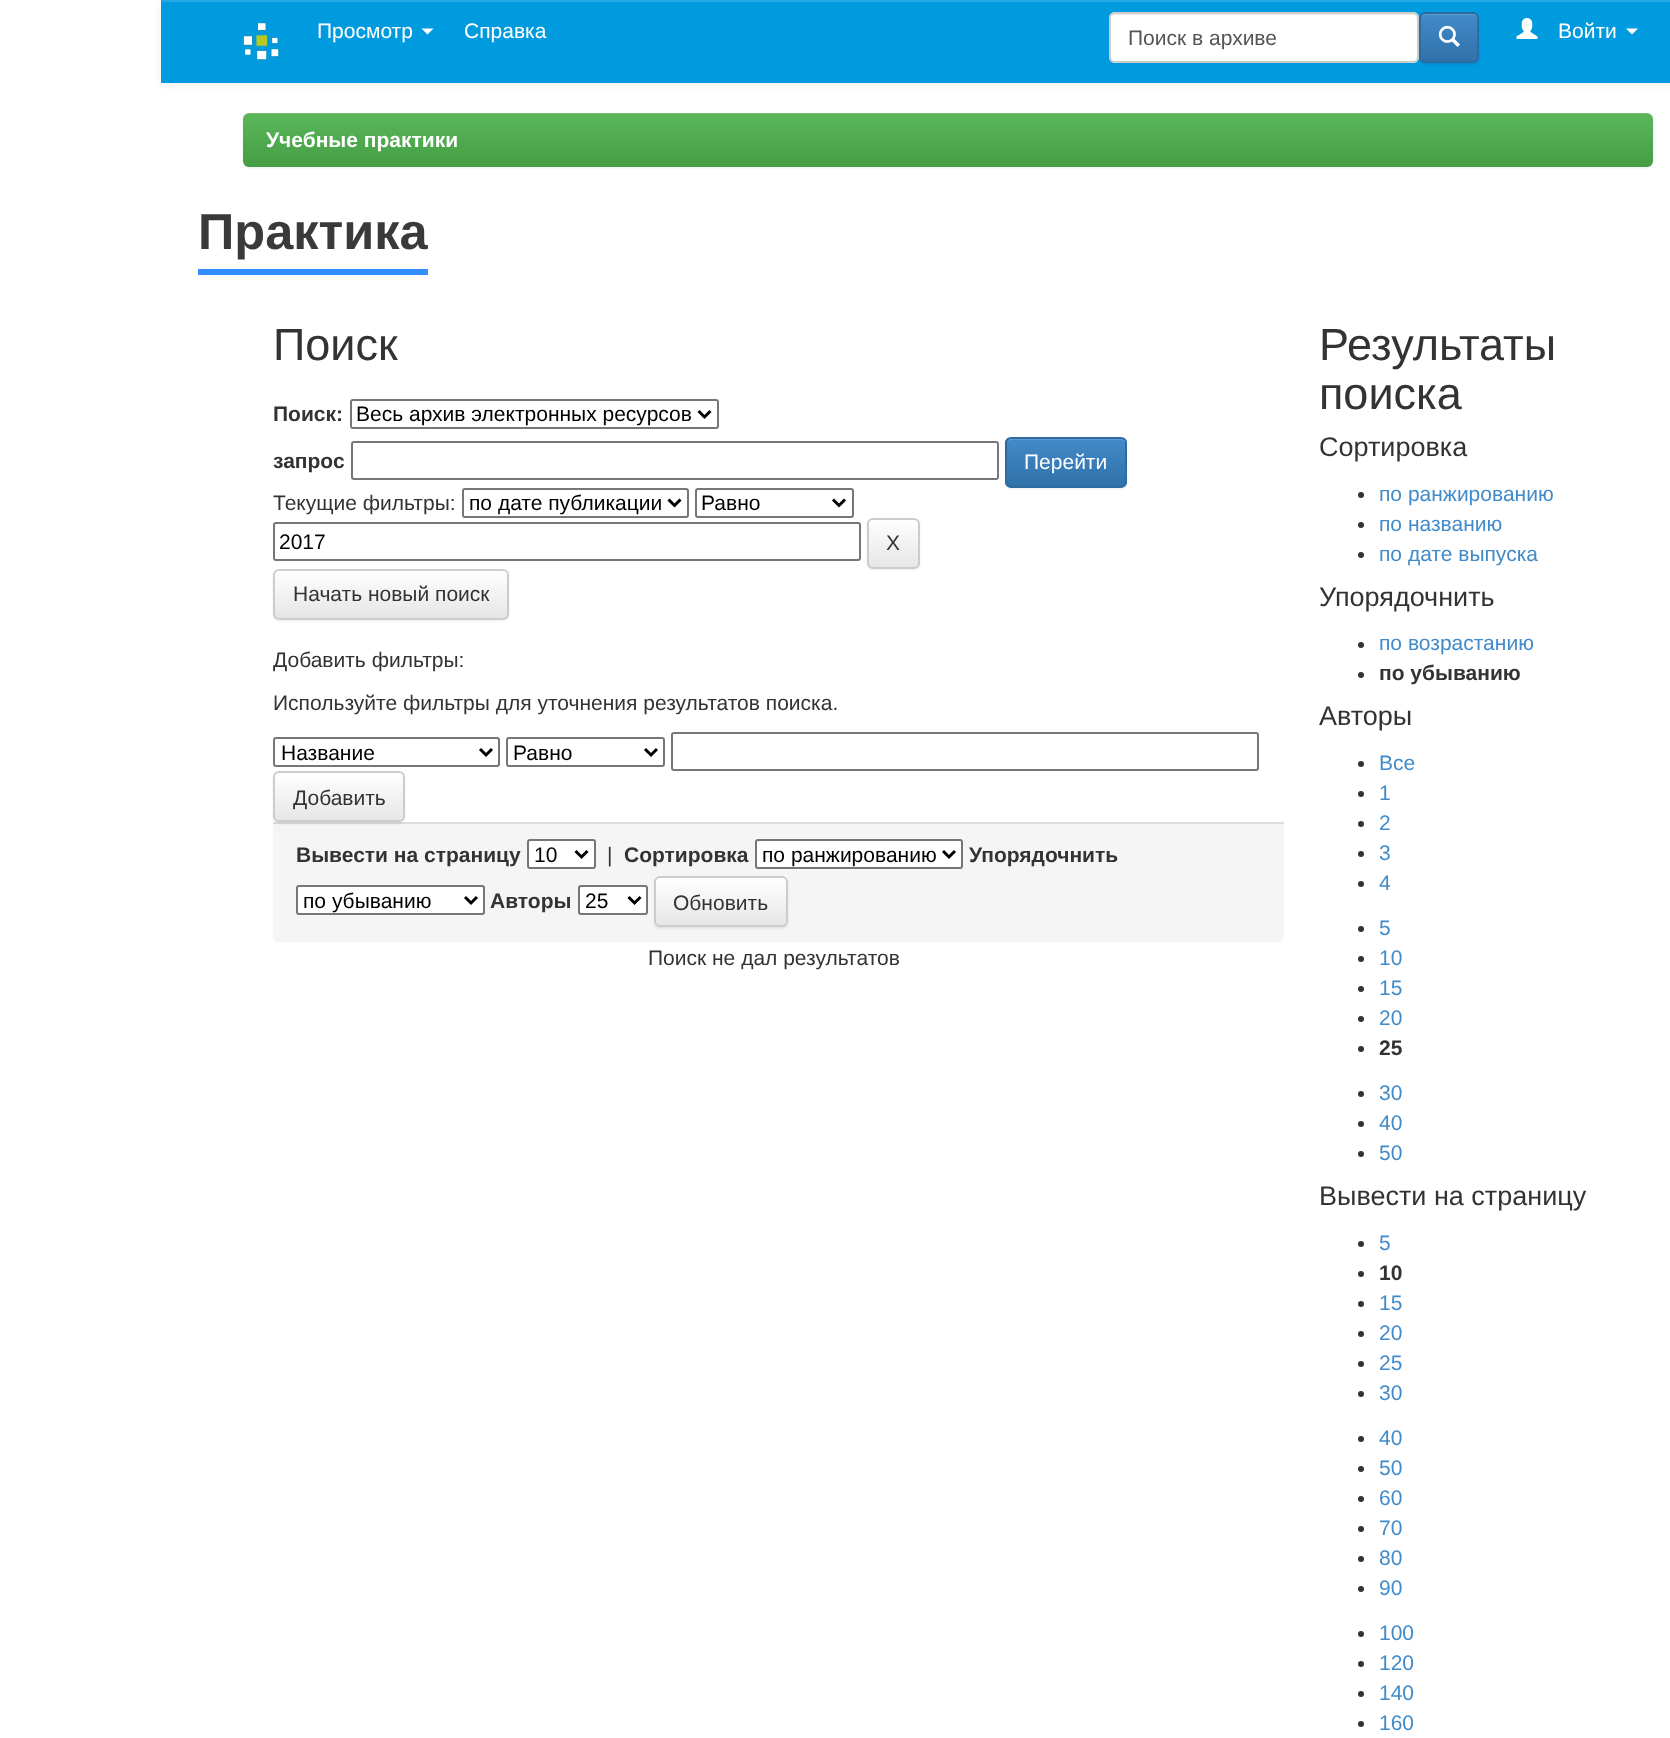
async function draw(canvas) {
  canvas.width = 1670;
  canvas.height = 1738;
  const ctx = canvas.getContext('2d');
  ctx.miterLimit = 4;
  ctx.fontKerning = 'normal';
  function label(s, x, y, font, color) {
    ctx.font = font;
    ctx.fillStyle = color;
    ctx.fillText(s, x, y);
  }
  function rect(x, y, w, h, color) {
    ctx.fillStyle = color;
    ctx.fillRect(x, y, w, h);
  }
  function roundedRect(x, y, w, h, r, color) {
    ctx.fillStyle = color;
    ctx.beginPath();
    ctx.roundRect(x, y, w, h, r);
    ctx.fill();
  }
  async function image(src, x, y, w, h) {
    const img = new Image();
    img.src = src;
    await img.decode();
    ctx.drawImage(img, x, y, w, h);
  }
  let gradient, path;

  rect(0, 0, 1670, 1738, '#fff');
  ctx.fillStyle = '#00000012';
  ctx.filter = 'blur(4px)';
  ctx.beginPath();
  ctx.rect(161, 2, 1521, 82);
  ctx.fill();
  ctx.filter = 'none';
  rect(161, 2, 1509, 81, '#009ade');
  rect(161, 0, 1509, 2, '#26a9e3');
  await image('assets/img1.png', 243, 22, 36, 38);
  label('Просмотр', 317, 38, '21px Liberation Sans', '#fff');
  path = new Path2D('M421.5 28.5H433.5L427.5 34.5Z');
  ctx.fill(path);
  label('Справка', 464, 38, '21px Liberation Sans', '#fff');
  roundedRect(1109, 12, 310, 51, 6, '#fff');
  ctx.fillStyle = '#ececec';
  path = new Path2D('M1114 15H1413C1415 15 1418 17 1418 20C1418 17 1416 14 1413 14H1115C1112 14 1110 17 1110 20C1110 17 1112 15 1114 15Z');
  ctx.fill(path);
  ctx.beginPath();
  ctx.roundRect(1110, 13, 308, 49, 5);
  ctx.strokeStyle = '#ccc';
  ctx.lineWidth = 2;
  ctx.stroke();
  label('Поиск в архиве', 1128, 45, '21px Liberation Sans', '#555');
  ctx.fillStyle = '#00000012';
  ctx.filter = 'blur(1px)';
  ctx.beginPath();
  ctx.roundRect(1419, 14, 60, 51, 6);
  ctx.fill();
  ctx.filter = 'none';
  ctx.save();
  ctx.beginPath();
  ctx.roundRect(1419, 12, 60, 51, 6);
  ctx.clip();
  gradient = ctx.createLinearGradient(1449, 13, 1449, 62);
  gradient.addColorStop(0, '#428bca');
  gradient.addColorStop(1, '#3071a9');
  ctx.fillStyle = gradient;
  ctx.fillRect(1419, 14, 60, 48);
  ctx.restore();
  ctx.fillStyle = '#5d9cd1';
  path = new Path2D('M1425 15H1473C1475 15 1478 17 1478 20V19C1478 16 1476 14 1473 14H1426C1424 14 1423 15 1422 16Z');
  ctx.fill(path);
  ctx.beginPath();
  ctx.roundRect(1420, 13, 58, 49, 5);
  ctx.strokeStyle = '#2d6ca2';
  ctx.stroke();
  await image('assets/img2.png', 1438, 25, 22, 22);
  await image('assets/img3.png', 1516, 18, 22, 21);
  label('Войти', 1558, 38, '21px Liberation Sans', '#fff');
  path = new Path2D('M1626 28.5H1638L1632 34.5Z');
  ctx.fill(path);
  ctx.fillStyle = '#00000012';
  ctx.filter = 'blur(1px)';
  ctx.beginPath();
  ctx.roundRect(243, 114, 1410, 54, 6);
  ctx.fill();
  ctx.filter = 'none';
  gradient = ctx.createLinearGradient(948, 112, 948, 167);
  gradient.addColorStop(0, '#5cb85c');
  gradient.addColorStop(1, '#449d44');
  ctx.fillStyle = gradient;
  ctx.beginPath();
  ctx.roundRect(243, 113, 1410, 54, 6);
  ctx.fill();
  ctx.fillStyle = '#ffffff26';
  path = new Path2D('M249 114H1647C1650 114 1653 117 1653 120C1653 116 1651 113 1647 113H249C245 113 243 116 243 120C243 117 246 114 249 114Z');
  ctx.fill(path);
  label('Учебные практики', 266, 147, 'bold 21px Liberation Sans', '#fff');
  rect(198, 269, 230, 6, '#338eff');
  label('Практика', 198, 249, 'bold 50.5px Liberation Sans', '#3a3a3a');
  label('Поиск', 273, 360, '45px Liberation Sans', '#333');
  label('Поиск:', 273, 421, 'bold 21px Liberation Sans', '#333');
  ctx.beginPath();
  ctx.roundRect(351, 400, 367, 28, 2);
  ctx.strokeStyle = '#767676';
  ctx.stroke();
  path = new Path2D('M698.5 411L704.5 417L710.5 411');
  ctx.strokeStyle = '#000';
  ctx.lineWidth = 3;
  ctx.stroke(path);
  label('Весь архив электронных ресурсов', 356, 421, '21px Liberation Sans', '#000');
  label('запрос', 273, 468, 'bold 21px Liberation Sans', '#333');
  ctx.beginPath();
  ctx.roundRect(352, 442, 646, 37, 2);
  ctx.strokeStyle = '#767676';
  ctx.lineWidth = 2;
  ctx.stroke();
  ctx.fillStyle = '#00000012';
  ctx.filter = 'blur(1px)';
  ctx.beginPath();
  ctx.roundRect(1005, 438, 122, 51, 6);
  ctx.fill();
  ctx.filter = 'none';
  ctx.save();
  ctx.beginPath();
  ctx.roundRect(1005, 437, 122, 51, 6);
  ctx.clip();
  gradient = ctx.createLinearGradient(1066, 438, 1066, 486);
  gradient.addColorStop(0, '#428bca');
  gradient.addColorStop(1, '#3071a9');
  ctx.fillStyle = gradient;
  ctx.fillRect(1005, 438, 122, 48);
  ctx.restore();
  ctx.fillStyle = '#5e9cd1';
  path = new Path2D('M1011 440H1120C1123 440 1125 442 1125 444V443C1125 440 1123 438 1120 438H1012C1010 438 1008 440 1007 442C1008 441 1010 440 1011 440Z');
  ctx.fill(path);
  ctx.beginPath();
  ctx.roundRect(1006, 438, 120, 49, 5);
  ctx.strokeStyle = '#2d6ca2';
  ctx.stroke();
  label('Перейти', 1024, 469, '21px Liberation Sans', '#fff');
  label('Текущие фильтры:', 273, 510, '21px Liberation Sans', '#333');
  ctx.beginPath();
  ctx.roundRect(463, 489, 225, 28, 2);
  ctx.strokeStyle = '#767676';
  ctx.stroke();
  path = new Path2D('M668.5 499.5L674.5 505.5L680.5 499.5');
  ctx.strokeStyle = '#000';
  ctx.lineWidth = 3;
  ctx.stroke(path);
  label('по дате публикации', 469, 510, '21px Liberation Sans', '#000');
  ctx.beginPath();
  ctx.roundRect(696, 489, 157, 28, 2);
  ctx.strokeStyle = '#767676';
  ctx.lineWidth = 2;
  ctx.stroke();
  path = new Path2D('M833 499.5L839 505.5L845 499.5');
  ctx.strokeStyle = '#000';
  ctx.lineWidth = 3;
  ctx.stroke(path);
  label('Равно', 701, 510, '21px Liberation Sans', '#000');
  ctx.beginPath();
  ctx.roundRect(274, 523, 586, 37, 2);
  ctx.strokeStyle = '#767676';
  ctx.lineWidth = 2;
  ctx.stroke();
  label('2017', 279, 549, '21px Liberation Sans', '#000');
  ctx.fillStyle = '#00000012';
  ctx.filter = 'blur(1px)';
  ctx.beginPath();
  ctx.roundRect(867, 519, 53, 51, 6);
  ctx.fill();
  ctx.filter = 'none';
  ctx.save();
  ctx.beginPath();
  ctx.roundRect(867, 518, 53, 51, 6);
  ctx.clip();
  gradient = ctx.createLinearGradient(893, 519, 893, 567);
  gradient.addColorStop(0, '#fff');
  gradient.addColorStop(1, '#e6e6e6');
  ctx.fillStyle = gradient;
  ctx.fillRect(867, 519, 53, 48);
  ctx.restore();
  ctx.beginPath();
  ctx.roundRect(868, 519, 51, 49, 5);
  ctx.strokeStyle = '#ccc';
  ctx.stroke();
  label('X', 886, 550, '21px Liberation Sans', '#333');
  ctx.fillStyle = '#00000012';
  ctx.filter = 'blur(1px)';
  ctx.beginPath();
  ctx.roundRect(273, 570, 236, 51, 6);
  ctx.fill();
  ctx.filter = 'none';
  ctx.save();
  ctx.beginPath();
  ctx.roundRect(273, 569, 236, 51, 6);
  ctx.clip();
  gradient = ctx.createLinearGradient(391, 570, 391, 618);
  gradient.addColorStop(0, '#fff');
  gradient.addColorStop(1, '#e6e6e6');
  ctx.fillStyle = gradient;
  ctx.fillRect(273, 570, 236, 48);
  ctx.restore();
  ctx.beginPath();
  ctx.roundRect(274, 570, 234, 49, 5);
  ctx.stroke();
  label('Начать новый поиск', 293, 601, '21px Liberation Sans', '#333');
  label('Добавить фильтры:', 273, 667, '21px Liberation Sans', '#333');
  label('Используйте фильтры для уточнения результатов поиска.', 273, 710, '21px Liberation Sans', '#333');
  ctx.beginPath();
  ctx.roundRect(274, 738, 225, 28, 2);
  ctx.strokeStyle = '#767676';
  ctx.stroke();
  path = new Path2D('M480 749L486 755L492 749');
  ctx.strokeStyle = '#000';
  ctx.lineWidth = 3;
  ctx.stroke(path);
  label('Название', 281, 760, '21px Liberation Sans', '#000');
  ctx.beginPath();
  ctx.roundRect(507, 738, 157, 28, 2);
  ctx.strokeStyle = '#767676';
  ctx.lineWidth = 2;
  ctx.stroke();
  path = new Path2D('M645 749L651 755L657 749');
  ctx.strokeStyle = '#000';
  ctx.lineWidth = 3;
  ctx.stroke(path);
  label('Равно', 513, 760, '21px Liberation Sans', '#000');
  ctx.beginPath();
  ctx.roundRect(672, 733, 586, 37, 2);
  ctx.strokeStyle = '#767676';
  ctx.lineWidth = 2;
  ctx.stroke();
  ctx.fillStyle = '#f5f5f5';
  ctx.beginPath();
  ctx.roundRect(273, 822, 1011, 120, [0, 0, 5, 5]);
  ctx.fill();
  rect(273, 822, 1011, 2, '#ddd');
  ctx.fillStyle = '#00000012';
  ctx.filter = 'blur(1px)';
  ctx.beginPath();
  ctx.roundRect(273, 773, 132, 51, 6);
  ctx.fill();
  ctx.filter = 'none';
  ctx.save();
  ctx.beginPath();
  ctx.roundRect(273, 771, 132, 51, 6);
  ctx.clip();
  gradient = ctx.createLinearGradient(339, 773, 339, 821);
  gradient.addColorStop(0, '#fff');
  gradient.addColorStop(1, '#e6e6e6');
  ctx.fillStyle = gradient;
  ctx.fillRect(273, 773, 132, 48);
  ctx.restore();
  ctx.beginPath();
  ctx.roundRect(274, 772, 130, 49, 5);
  ctx.strokeStyle = '#ccc';
  ctx.stroke();
  label('Добавить', 293, 805, '21px Liberation Sans', '#333');
  label('Вывести на страницу', 296, 862, 'bold 21px Liberation Sans', '#333');
  ctx.fillStyle = '#fff';
  ctx.beginPath();
  ctx.roundRect(528, 840, 67, 28, 2);
  ctx.fill();
  ctx.strokeStyle = '#767676';
  ctx.stroke();
  path = new Path2D('M575.5 851L581.5 857L587.5 851');
  ctx.strokeStyle = '#000';
  ctx.lineWidth = 3;
  ctx.stroke(path);
  label('10', 534, 862, '21px Liberation Sans', '#000');
  label('|', 607, 862, '21px Liberation Sans', '#333');
  label('Сортировка', 624, 862, 'bold 21px Liberation Sans', '#333');
  ctx.fillStyle = '#fff';
  ctx.beginPath();
  ctx.roundRect(756, 840, 206, 28, 2);
  ctx.fill();
  ctx.strokeStyle = '#767676';
  ctx.lineWidth = 2;
  ctx.stroke();
  path = new Path2D('M943 851L949 857L955 851');
  ctx.strokeStyle = '#000';
  ctx.lineWidth = 3;
  ctx.stroke(path);
  label('по ранжированию', 762, 862, '21px Liberation Sans', '#000');
  label('Упорядочнить', 969, 862, 'bold 21px Liberation Sans', '#333');
  ctx.fillStyle = '#fff';
  ctx.beginPath();
  ctx.roundRect(297, 886, 187, 28, 2);
  ctx.fill();
  ctx.strokeStyle = '#767676';
  ctx.lineWidth = 2;
  ctx.stroke();
  path = new Path2D('M465 897L471 903L477 897');
  ctx.strokeStyle = '#000';
  ctx.lineWidth = 3;
  ctx.stroke(path);
  label('по убыванию', 303, 908, '21px Liberation Sans', '#000');
  label('Авторы', 490, 908, 'bold 21px Liberation Sans', '#333');
  ctx.fillStyle = '#fff';
  ctx.beginPath();
  ctx.roundRect(579, 886, 68, 28, 2);
  ctx.fill();
  ctx.strokeStyle = '#767676';
  ctx.lineWidth = 2;
  ctx.stroke();
  path = new Path2D('M628.5 897L634.5 903L640.5 897');
  ctx.strokeStyle = '#000';
  ctx.lineWidth = 3;
  ctx.stroke(path);
  label('25', 585, 908, '21px Liberation Sans', '#000');
  ctx.fillStyle = '#00000012';
  ctx.filter = 'blur(1px)';
  ctx.beginPath();
  ctx.roundRect(654, 878, 134, 51, 6);
  ctx.fill();
  ctx.filter = 'none';
  ctx.save();
  ctx.beginPath();
  ctx.roundRect(654, 876, 134, 51, 6);
  ctx.clip();
  gradient = ctx.createLinearGradient(721, 878, 721, 926);
  gradient.addColorStop(0, '#fff');
  gradient.addColorStop(1, '#e6e6e6');
  ctx.fillStyle = gradient;
  ctx.fillRect(654, 878, 134, 48);
  ctx.restore();
  ctx.beginPath();
  ctx.roundRect(655, 877, 132, 49, 5);
  ctx.strokeStyle = '#ccc';
  ctx.lineWidth = 2;
  ctx.stroke();
  label('Обновить', 673, 910, '21px Liberation Sans', '#333');
  label('Поиск не дал результатов', 648, 965, '21px Liberation Sans', '#333');
  label('Результаты', 1319, 360, '45px Liberation Sans', '#333');
  label('поиска', 1319, 409, '45px Liberation Sans', '#333');
  label('Сортировка', 1319, 456, '27px Liberation Sans', '#333');
  ctx.beginPath();
  ctx.arc(1361, 495, 3, 0, 2 * Math.PI);
  ctx.fill();
  label('по ранжированию', 1379, 501, '21px Liberation Sans', '#428bca');
  ctx.fillStyle = '#333';
  ctx.beginPath();
  ctx.arc(1361, 525, 3, 0, 2 * Math.PI);
  ctx.fill();
  label('по названию', 1379, 531, '21px Liberation Sans', '#428bca');
  ctx.fillStyle = '#333';
  ctx.beginPath();
  ctx.arc(1361, 555, 3, 0, 2 * Math.PI);
  ctx.fill();
  label('по дате выпуска', 1379, 561, '21px Liberation Sans', '#428bca');
  label('Упорядочнить', 1319, 606, '27px Liberation Sans', '#333');
  ctx.beginPath();
  ctx.arc(1361, 645, 3, 0, 2 * Math.PI);
  ctx.fill();
  label('по возрастанию', 1379, 650, '21px Liberation Sans', '#428bca');
  ctx.fillStyle = '#333';
  ctx.beginPath();
  ctx.arc(1361, 675, 3, 0, 2 * Math.PI);
  ctx.fill();
  label('по убыванию', 1379, 680, 'bold 21px Liberation Sans', '#333');
  label('Авторы', 1319, 725, '27px Liberation Sans', '#333');
  ctx.beginPath();
  ctx.arc(1361, 764, 3, 0, 2 * Math.PI);
  ctx.fill();
  label('Все', 1379, 770, '21px Liberation Sans', '#428bca');
  ctx.fillStyle = '#333';
  ctx.beginPath();
  ctx.arc(1361, 794, 3, 0, 2 * Math.PI);
  ctx.fill();
  label('1', 1379, 800, '21px Liberation Sans', '#428bca');
  ctx.fillStyle = '#333';
  ctx.beginPath();
  ctx.arc(1361, 824, 3, 0, 2 * Math.PI);
  ctx.fill();
  label('2', 1379, 830, '21px Liberation Sans', '#428bca');
  ctx.fillStyle = '#333';
  ctx.beginPath();
  ctx.arc(1361, 854, 3, 0, 2 * Math.PI);
  ctx.fill();
  label('3', 1379, 860, '21px Liberation Sans', '#428bca');
  ctx.fillStyle = '#333';
  ctx.beginPath();
  ctx.arc(1361, 884, 3, 0, 2 * Math.PI);
  ctx.fill();
  label('4', 1379, 890, '21px Liberation Sans', '#428bca');
  ctx.fillStyle = '#333';
  ctx.beginPath();
  ctx.arc(1361, 929, 3, 0, 2 * Math.PI);
  ctx.fill();
  label('5', 1379, 935, '21px Liberation Sans', '#428bca');
  ctx.fillStyle = '#333';
  ctx.beginPath();
  ctx.arc(1361, 959, 3, 0, 2 * Math.PI);
  ctx.fill();
  label('10', 1379, 965, '21px Liberation Sans', '#428bca');
  ctx.fillStyle = '#333';
  ctx.beginPath();
  ctx.arc(1361, 989, 3, 0, 2 * Math.PI);
  ctx.fill();
  label('15', 1379, 995, '21px Liberation Sans', '#428bca');
  ctx.fillStyle = '#333';
  ctx.beginPath();
  ctx.arc(1361, 1019, 3, 0, 2 * Math.PI);
  ctx.fill();
  label('20', 1379, 1025, '21px Liberation Sans', '#428bca');
  ctx.fillStyle = '#333';
  ctx.beginPath();
  ctx.arc(1361, 1049, 3, 0, 2 * Math.PI);
  ctx.fill();
  label('25', 1379, 1055, 'bold 21px Liberation Sans', '#333');
  ctx.beginPath();
  ctx.arc(1361, 1094, 3, 0, 2 * Math.PI);
  ctx.fill();
  label('30', 1379, 1100, '21px Liberation Sans', '#428bca');
  ctx.fillStyle = '#333';
  ctx.beginPath();
  ctx.arc(1361, 1124, 3, 0, 2 * Math.PI);
  ctx.fill();
  label('40', 1379, 1130, '21px Liberation Sans', '#428bca');
  ctx.fillStyle = '#333';
  ctx.beginPath();
  ctx.arc(1361, 1154, 3, 0, 2 * Math.PI);
  ctx.fill();
  label('50', 1379, 1160, '21px Liberation Sans', '#428bca');
  label('Вывести на страницу', 1319, 1205, '27px Liberation Sans', '#333');
  ctx.beginPath();
  ctx.arc(1361, 1244, 3, 0, 2 * Math.PI);
  ctx.fill();
  label('5', 1379, 1250, '21px Liberation Sans', '#428bca');
  ctx.fillStyle = '#333';
  ctx.beginPath();
  ctx.arc(1361, 1274, 3, 0, 2 * Math.PI);
  ctx.fill();
  label('10', 1379, 1280, 'bold 21px Liberation Sans', '#333');
  ctx.beginPath();
  ctx.arc(1361, 1304, 3, 0, 2 * Math.PI);
  ctx.fill();
  label('15', 1379, 1310, '21px Liberation Sans', '#428bca');
  ctx.fillStyle = '#333';
  ctx.beginPath();
  ctx.arc(1361, 1334, 3, 0, 2 * Math.PI);
  ctx.fill();
  label('20', 1379, 1340, '21px Liberation Sans', '#428bca');
  ctx.fillStyle = '#333';
  ctx.beginPath();
  ctx.arc(1361, 1364, 3, 0, 2 * Math.PI);
  ctx.fill();
  label('25', 1379, 1370, '21px Liberation Sans', '#428bca');
  ctx.fillStyle = '#333';
  ctx.beginPath();
  ctx.arc(1361, 1394, 3, 0, 2 * Math.PI);
  ctx.fill();
  label('30', 1379, 1400, '21px Liberation Sans', '#428bca');
  ctx.fillStyle = '#333';
  ctx.beginPath();
  ctx.arc(1361, 1439, 3, 0, 2 * Math.PI);
  ctx.fill();
  label('40', 1379, 1445, '21px Liberation Sans', '#428bca');
  ctx.fillStyle = '#333';
  ctx.beginPath();
  ctx.arc(1361, 1469, 3, 0, 2 * Math.PI);
  ctx.fill();
  label('50', 1379, 1475, '21px Liberation Sans', '#428bca');
  ctx.fillStyle = '#333';
  ctx.beginPath();
  ctx.arc(1361, 1499, 3, 0, 2 * Math.PI);
  ctx.fill();
  label('60', 1379, 1505, '21px Liberation Sans', '#428bca');
  ctx.fillStyle = '#333';
  ctx.beginPath();
  ctx.arc(1361, 1529, 3, 0, 2 * Math.PI);
  ctx.fill();
  label('70', 1379, 1535, '21px Liberation Sans', '#428bca');
  ctx.fillStyle = '#333';
  ctx.beginPath();
  ctx.arc(1361, 1559, 3, 0, 2 * Math.PI);
  ctx.fill();
  label('80', 1379, 1565, '21px Liberation Sans', '#428bca');
  ctx.fillStyle = '#333';
  ctx.beginPath();
  ctx.arc(1361, 1589, 3, 0, 2 * Math.PI);
  ctx.fill();
  label('90', 1379, 1595, '21px Liberation Sans', '#428bca');
  ctx.fillStyle = '#333';
  ctx.beginPath();
  ctx.arc(1361, 1634, 3, 0, 2 * Math.PI);
  ctx.fill();
  label('100', 1379, 1640, '21px Liberation Sans', '#428bca');
  ctx.fillStyle = '#333';
  ctx.beginPath();
  ctx.arc(1361, 1664, 3, 0, 2 * Math.PI);
  ctx.fill();
  label('120', 1379, 1670, '21px Liberation Sans', '#428bca');
  ctx.fillStyle = '#333';
  ctx.beginPath();
  ctx.arc(1361, 1694, 3, 0, 2 * Math.PI);
  ctx.fill();
  label('140', 1379, 1700, '21px Liberation Sans', '#428bca');
  ctx.fillStyle = '#333';
  ctx.beginPath();
  ctx.arc(1361, 1724, 3, 0, 2 * Math.PI);
  ctx.fill();
  label('160', 1379, 1730, '21px Liberation Sans', '#428bca');
}

draw(document.querySelector('canvas'));
